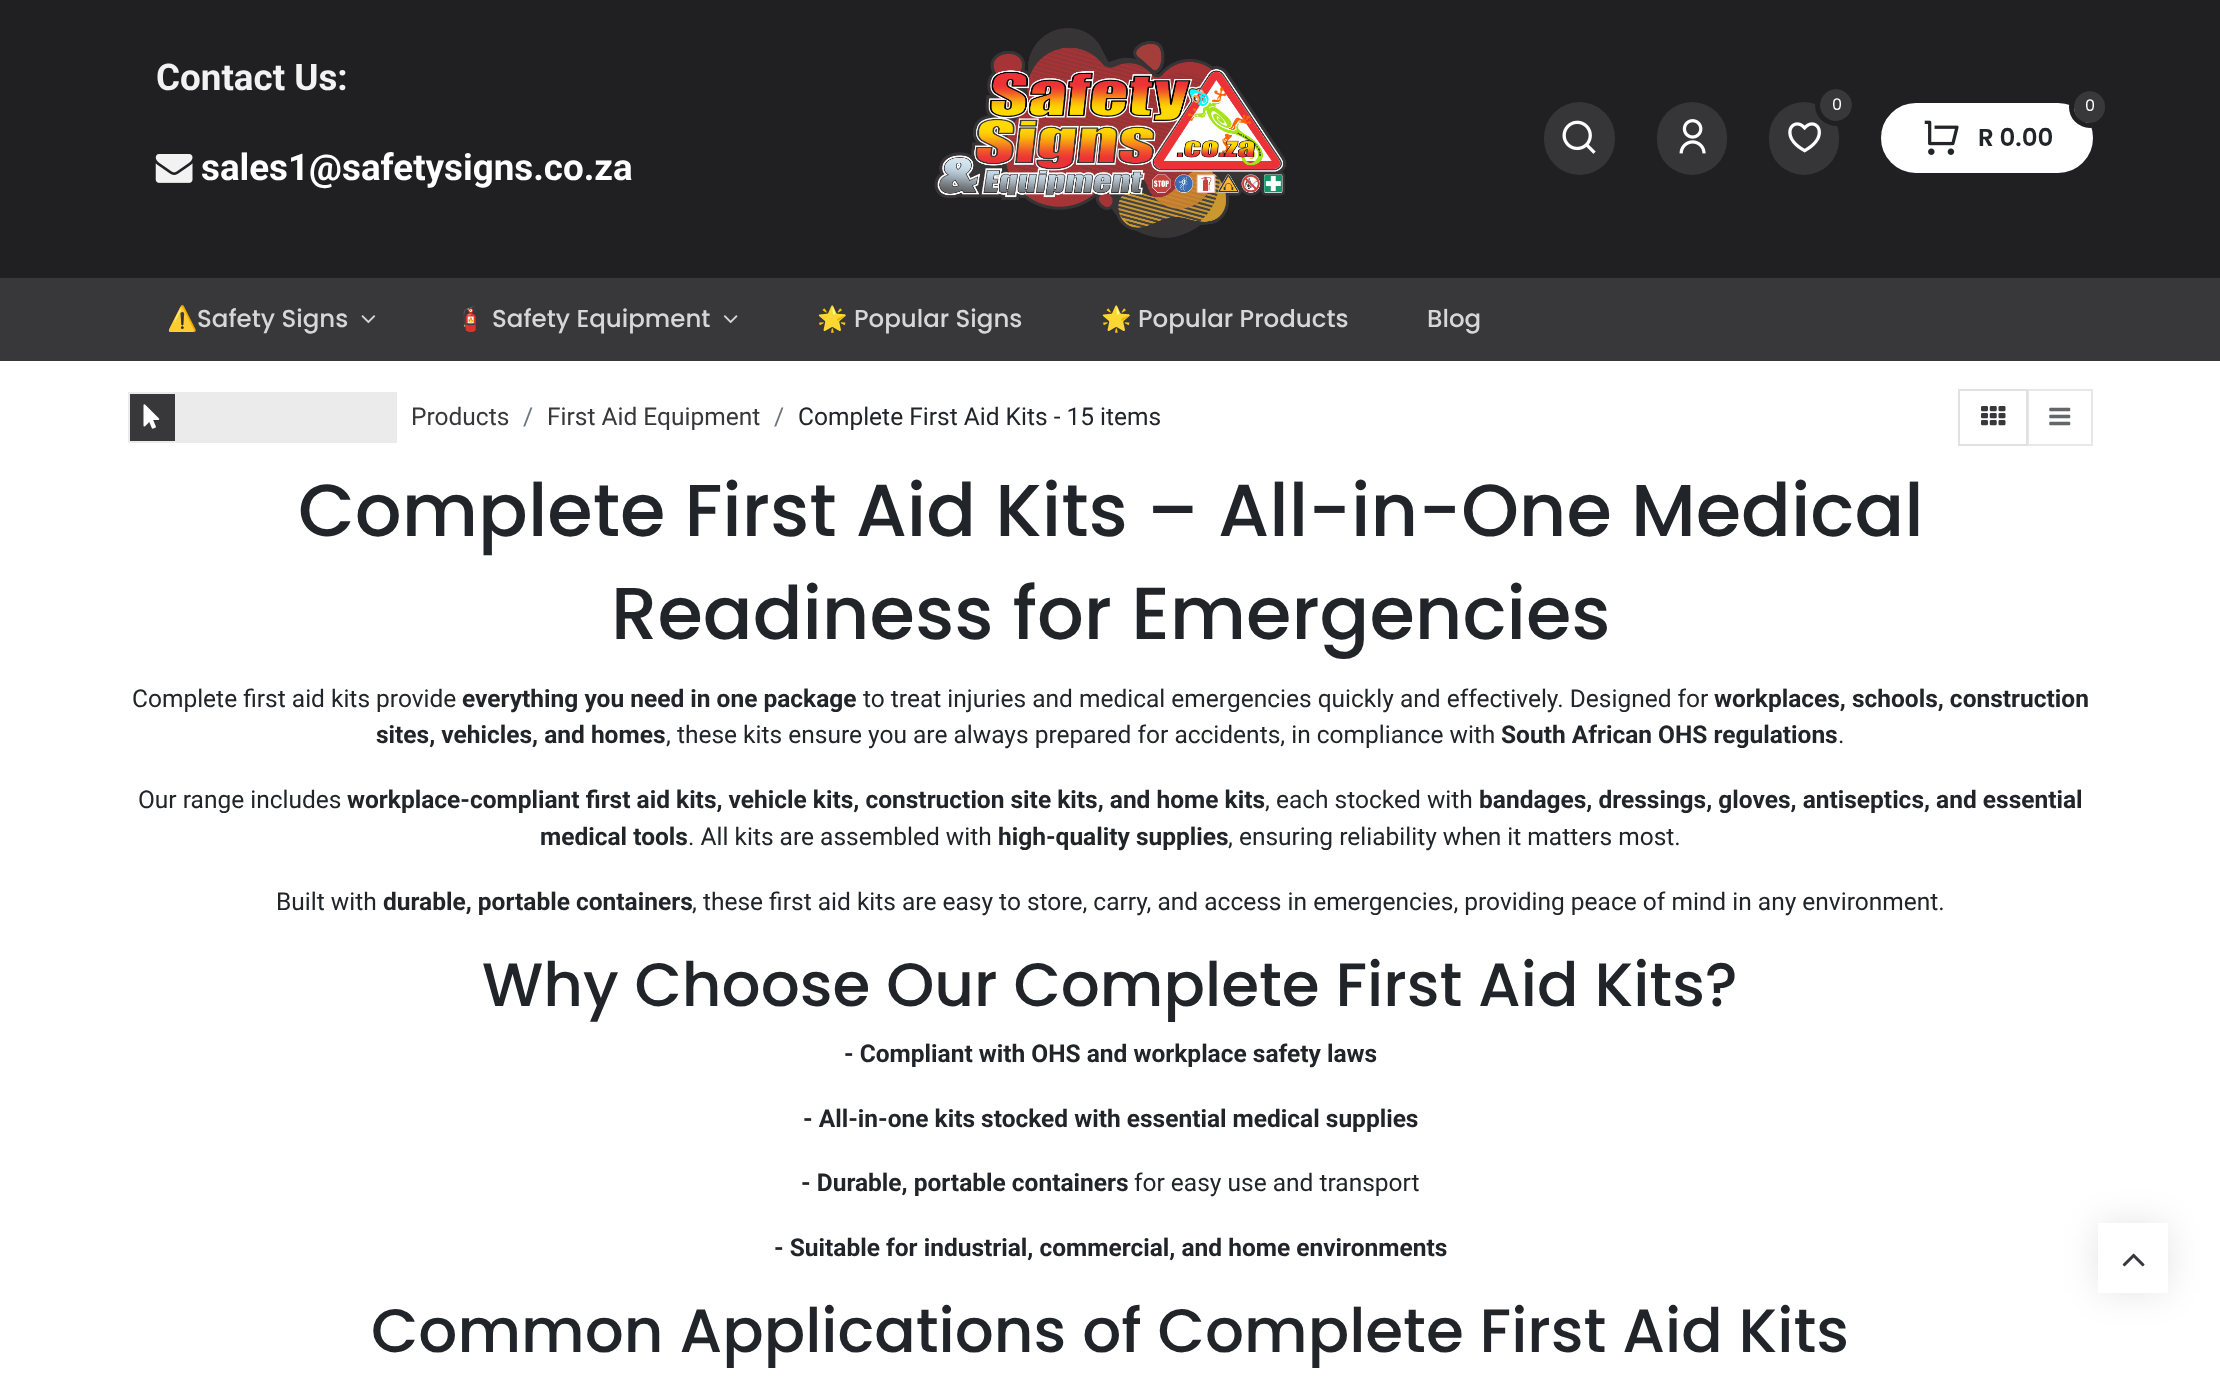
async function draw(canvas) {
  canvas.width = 2220;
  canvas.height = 1389;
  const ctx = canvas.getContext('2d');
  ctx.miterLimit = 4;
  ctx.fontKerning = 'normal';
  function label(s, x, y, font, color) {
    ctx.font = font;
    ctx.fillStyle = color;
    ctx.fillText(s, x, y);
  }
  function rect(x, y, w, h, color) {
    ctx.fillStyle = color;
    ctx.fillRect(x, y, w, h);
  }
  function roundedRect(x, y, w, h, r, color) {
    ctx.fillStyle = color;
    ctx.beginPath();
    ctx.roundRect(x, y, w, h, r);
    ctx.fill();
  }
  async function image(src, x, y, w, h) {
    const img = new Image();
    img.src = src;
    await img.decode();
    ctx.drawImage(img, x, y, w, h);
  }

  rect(0, 0, 2220, 1389, '#fff');
  rect(0, 0, 2220, 277, '#202022');
  rect(0, 277, 2220, 1, '#202123');
  label('Contact Us:', 156, 90, 'bold 36.75px Roboto', '#f2f2f3');
  await image('assets/img1.png', 155, 154, 38, 29);
  label('sales1@safetysigns.co.za', 201, 180, 'bold 36.75px Roboto', '#fff');
  await image('assets/img2.png', 934, 28, 353, 210);
  roundedRect(1544, 102, 71, 73, 35.5, '#363638');
  await image('assets/img3.png', 1562, 120, 34, 34);
  roundedRect(1657, 102, 70, 73, 35, '#363638');
  await image('assets/img4.png', 1679, 119, 27, 35);
  roundedRect(1769, 102, 70, 73, 35, '#363638');
  ctx.fillStyle = '#38383b';
  ctx.beginPath();
  ctx.arc(1836, 105, 16, 0, 2 * Math.PI);
  ctx.fill();
  label('0', 1832, 110, '16px Poppins', '#fff');
  await image('assets/img5.png', 1788, 122, 33, 31);
  ctx.beginPath();
  ctx.arc(1836, 105, 18.5, 0, 2 * Math.PI);
  ctx.strokeStyle = '#202022';
  ctx.lineWidth = 5;
  ctx.stroke();
  ctx.beginPath();
  ctx.roundRect(1882, 104, 210, 68, 34);
  ctx.fill();
  ctx.strokeStyle = '#fff';
  ctx.lineWidth = 2;
  ctx.stroke();
  roundedRect(2074, 91, 31, 32, 15.5, '#38383b');
  label('0', 2085, 111, '16px Poppins', '#fff');
  ctx.beginPath();
  ctx.arc(2090, 107, 18.5, 0, 2 * Math.PI);
  ctx.strokeStyle = '#202022';
  ctx.lineWidth = 5;
  ctx.stroke();
  await image('assets/img6.png', 1924, 120, 35, 35);
  label('R 0.00', 1978, 146, '600 24.5px Poppins', '#212529');
  rect(0, 278, 2220, 83, '#38383b');
  label('⚠️', 167, 327, '24.5px Noto Color Emoji', '#d7d7d8');
  label('Safety Signs', 197, 327, '500 24.5px Poppins', '#d7d7d8');
  await image('assets/img7.png', 361, 315, 15, 9);
  label('🧯️', 455, 327, '24.5px Noto Color Emoji', '#d7d7d8');
  label('Safety Equipment', 492, 327, '500 24.5px Poppins', '#d7d7d8');
  await image('assets/img8.png', 723, 315, 15, 9);
  label('🌟', 817, 327, '24.5px Noto Color Emoji', '#d7d7d8');
  label('Popular Signs', 854, 327, '500 24.5px Poppins', '#d7d7d8');
  label('🌟', 1101, 327, '24.5px Noto Color Emoji', '#d7d7d8');
  label('Popular Products', 1138, 327, '500 24.5px Poppins', '#d7d7d8');
  label('Blog', 1427, 327, '500 24.5px Poppins', '#d7d7d8');
  rect(128, 392, 269, 51, '#ebebeb');
  rect(130, 394, 45, 47, '#38383b');
  await image('assets/img9.png', 143, 404, 17, 25);
  label('Products', 411, 425, '24.5px Roboto', '#38383b');
  label('/', 523, 425, '24.5px Roboto', '#6c757d');
  label('First Aid Equipment', 547, 425, '24.5px Roboto', '#38383b');
  label('/', 774, 425, '24.5px Roboto', '#6c757d');
  label('Complete First Aid Kits - 15 items', 798, 425, '24.5px Roboto', '#212529');
  ctx.strokeStyle = '#e8e8e8';
  ctx.lineWidth = 2;
  ctx.strokeRect(2028, 390, 64, 55);
  ctx.strokeStyle = '#e1e1e2';
  ctx.strokeRect(1959, 390, 68, 55);
  await image('assets/img10.png', 1981, 406, 25, 20);
  await image('assets/img11.png', 2049, 407, 22, 19);
  label('Complete First Aid Kits – All-in-One Medical', 298, 536, '500 73.5px Poppins', '#212529');
  label('Readiness for Emergencies', 611, 639, '500 73.5px Poppins', '#212529');
  label('Complete first aid kits provide', 132, 707, '24.5px Roboto', '#212529');
  label('everything you need in one package', 462, 707, 'bold 24.5px Roboto', '#212529');
  label('to treat injuries and medical emergencies quickly and effectively. Designed for', 863, 707, '24.5px Roboto', '#212529');
  label('workplaces, schools, construction', 1714, 707, 'bold 24.5px Roboto', '#212529');
  label('sites, vehicles, and homes', 376, 743, 'bold 24.5px Roboto', '#212529');
  label(', these kits ensure you are always prepared for accidents, in compliance with', 666, 743, '24.5px Roboto', '#212529');
  label('South African OHS regulations', 1501, 743, 'bold 24.5px Roboto', '#212529');
  label('.', 1838, 743, '24.5px Roboto', '#212529');
  label('Our range includes', 138, 808, '24.5px Roboto', '#212529');
  label('workplace-compliant first aid kits, vehicle kits, construction site kits, and home kits', 347, 808, 'bold 24.5px Roboto', '#212529');
  label(', each stocked with', 1265, 808, '24.5px Roboto', '#212529');
  label('bandages, dressings, gloves, antiseptics, and essential', 1479, 808, 'bold 24.5px Roboto', '#212529');
  label('medical tools', 540, 845, 'bold 24.5px Roboto', '#212529');
  label('. All kits are assembled with', 688, 845, '24.5px Roboto', '#212529');
  label('high-quality supplies', 998, 845, 'bold 24.5px Roboto', '#212529');
  label(', ensuring reliability when it matters most.', 1228, 845, '24.5px Roboto', '#212529');
  label('Built with', 276, 910, '24.5px Roboto', '#212529');
  label('durable, portable containers', 383, 910, 'bold 24.5px Roboto', '#212529');
  label(', these first aid kits are easy to store, carry, and access in emergencies, providing peace of mind in any environment.', 692, 910, '24.5px Roboto', '#212529');
  label('Why Choose Our Complete First Aid Kits?', 482, 1006, '500 61.25px Poppins', '#212529');
  label('- Compliant with OHS and workplace safety laws', 844, 1062, 'bold 24.5px Roboto', '#212529');
  label('- All-in-one kits stocked with essential medical supplies', 803, 1127, 'bold 24.5px Roboto', '#212529');
  label('- Durable, portable containers', 801, 1191, 'bold 24.5px Roboto', '#212529');
  label('for easy use and transport', 1134, 1191, '24.5px Roboto', '#212529');
  label('- Suitable for industrial, commercial, and home environments', 774, 1256, 'bold 24.5px Roboto', '#212529');
  label('Common Applications of Complete First Aid Kits', 371, 1352, '500 61.25px Poppins', '#212529');
  ctx.fillStyle = '#0000001a';
  ctx.filter = 'blur(17.5px)';
  ctx.beginPath();
  ctx.rect(2098, 1223, 70, 70);
  ctx.fill();
  ctx.filter = 'none';
  rect(2098, 1223, 70, 70, '#fff');
  await image('assets/img12.png', 2122, 1253, 23, 14);
}

draw(document.querySelector('canvas'));
